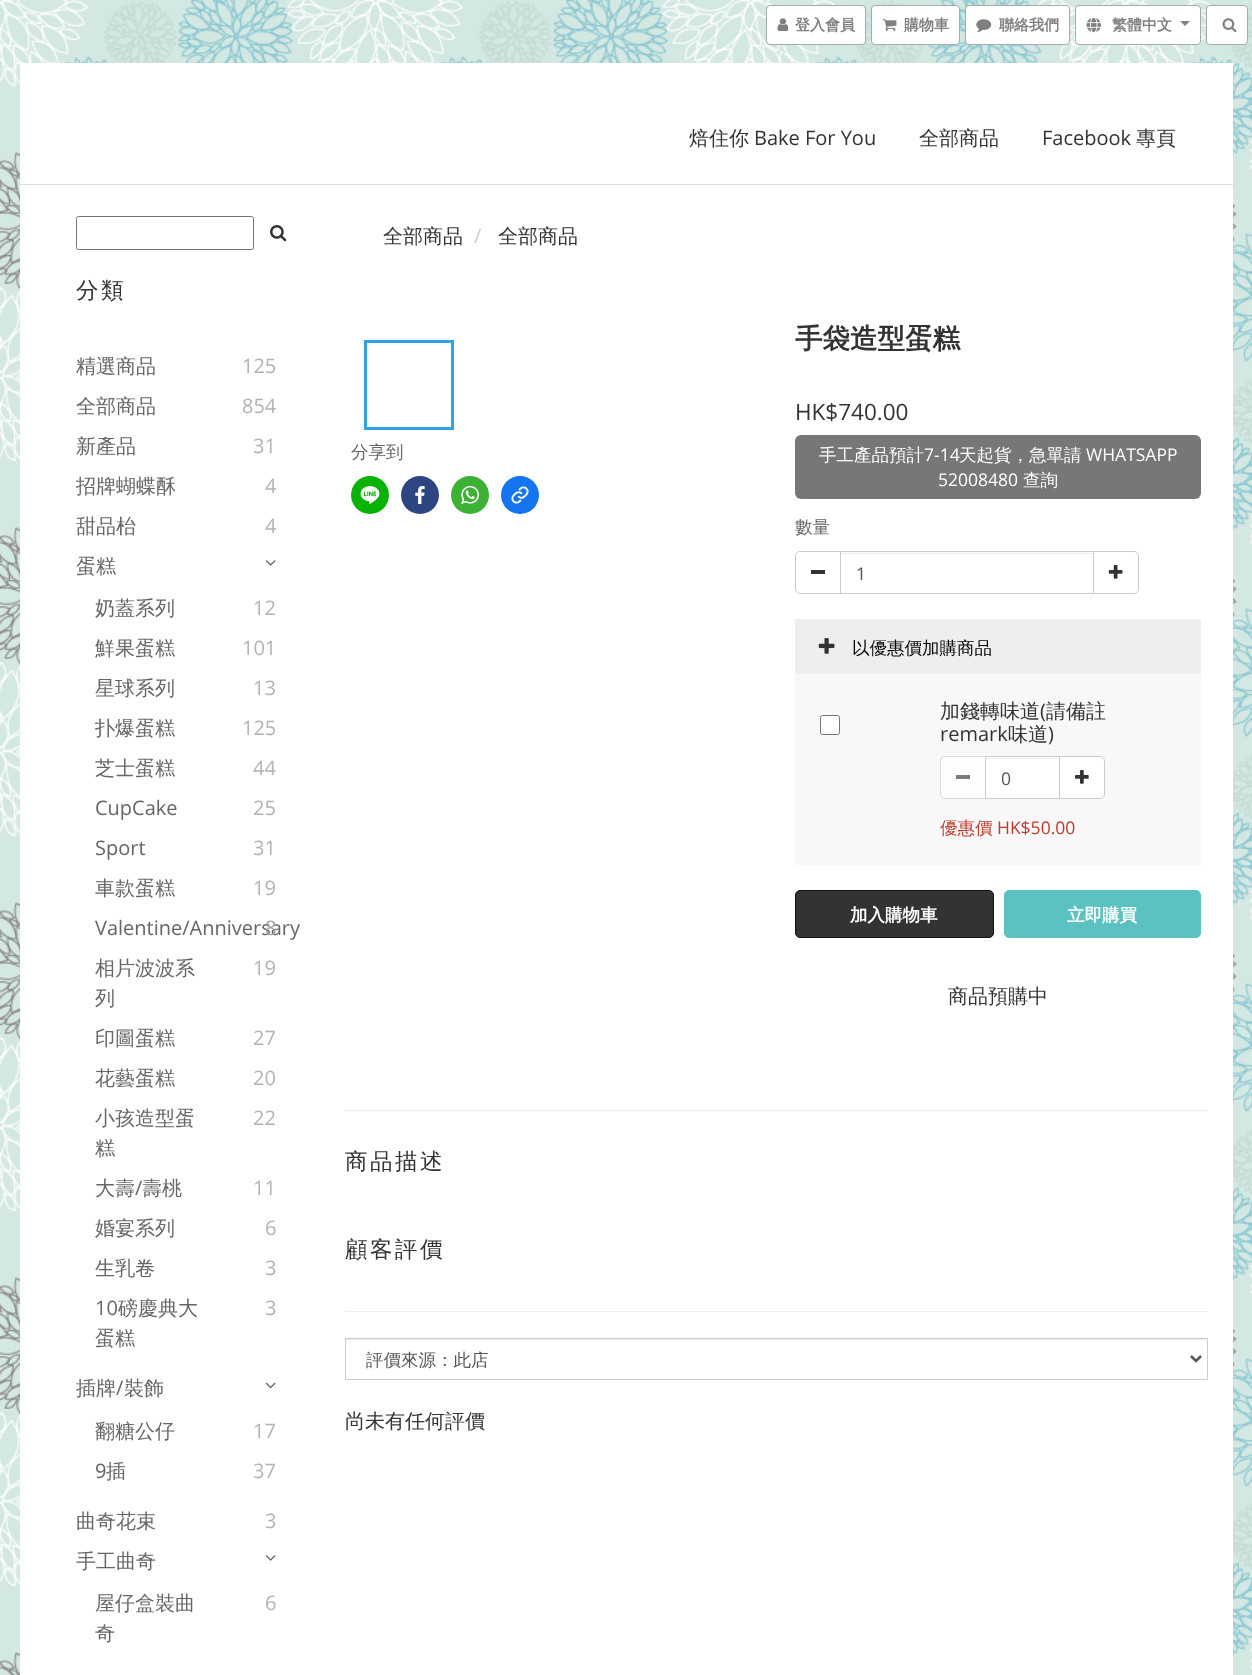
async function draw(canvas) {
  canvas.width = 1252;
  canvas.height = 1675;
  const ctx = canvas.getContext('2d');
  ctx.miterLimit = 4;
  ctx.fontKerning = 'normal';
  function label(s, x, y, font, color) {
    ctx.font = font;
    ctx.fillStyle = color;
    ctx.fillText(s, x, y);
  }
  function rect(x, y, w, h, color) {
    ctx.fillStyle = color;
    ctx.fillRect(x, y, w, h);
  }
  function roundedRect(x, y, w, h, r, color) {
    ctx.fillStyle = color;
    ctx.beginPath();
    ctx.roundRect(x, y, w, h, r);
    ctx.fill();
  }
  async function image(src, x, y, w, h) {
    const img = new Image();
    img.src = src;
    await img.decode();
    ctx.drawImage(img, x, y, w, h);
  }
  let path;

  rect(0, 0, 1252, 1675, '#fff');
  await image('assets/img1.png', 0, 0, 1252, 1675);
  ctx.beginPath();
  ctx.roundRect(766.5, 5.5, 99, 39, 3.5);
  ctx.fill();
  ctx.strokeStyle = '#aaa';
  ctx.stroke();
  await image('assets/img2.png', 777, 18, 12, 14);
  label('登入會員', 795, 30, 'bold 15px WenQuanYi Zen Hei', '#808080');
  ctx.fillStyle = '#fff';
  ctx.beginPath();
  ctx.roundRect(871.5, 5.5, 88, 39, 3.5);
  ctx.fill();
  ctx.stroke();
  await image('assets/img3.png', 882, 19, 15, 12);
  label('購物車', 904, 30, 'bold 15px WenQuanYi Zen Hei', '#808080');
  ctx.fillStyle = '#fff';
  ctx.beginPath();
  ctx.roundRect(965.5, 5.5, 104, 39, 3.5);
  ctx.fill();
  ctx.stroke();
  await image('assets/img4.png', 976, 19, 16, 14);
  label('聯絡我們', 999, 30, 'bold 15px WenQuanYi Zen Hei', '#808080');
  ctx.fillStyle = '#fff';
  ctx.beginPath();
  ctx.roundRect(1075.5, 5.5, 125, 39, 3.5);
  ctx.fill();
  ctx.stroke();
  await image('assets/img5.png', 1086, 18, 15, 15);
  label('繁體中文', 1112, 30, 'bold 15px WenQuanYi Zen Hei', '#808080');
  path = new Path2D('M1180 21H1190L1185 26Z');
  ctx.fill(path);
  ctx.fillStyle = '#fff';
  ctx.beginPath();
  ctx.roundRect(1206.5, 5.5, 41, 39, 3.5);
  ctx.fill();
  ctx.stroke();
  await image('assets/img6.png', 1222, 18, 15, 15);
  rect(20, 63, 1213, 121, '#fff');
  rect(20, 184, 1213, 1, '#e0e0e0');
  label('焙住你', 689, 145, '500 20px WenQuanYi Zen Hei', '#333');
  label('Bake For You', 754, 145, '20px Open Sans', '#333');
  label('全部商品', 919, 145, '500 20px WenQuanYi Zen Hei', '#333');
  label('Facebook', 1042, 145, '20px Open Sans', '#333');
  label('專頁', 1136, 145, '500 20px WenQuanYi Zen Hei', '#333');
  rect(20, 185, 1213, 1490, '#fff');
  ctx.beginPath();
  ctx.roundRect(76.5, 216.5, 177, 33, 2);
  ctx.strokeStyle = '#767676';
  ctx.stroke();
  await image('assets/img7.png', 270, 225, 17, 17);
  ctx.letterSpacing = '2.5px';
  label('分類', 76, 298, '500 22.5px WenQuanYi Zen Hei', '#333');
  ctx.letterSpacing = '0px';
  label('精選商品', 76, 373, '500 20px WenQuanYi Zen Hei', '#666');
  label('125', 242, 373, '20px Open Sans', '#b3b3b3');
  label('全部商品', 76, 413, '500 20px WenQuanYi Zen Hei', '#666');
  label('854', 242, 413, '20px Open Sans', '#b3b3b3');
  label('新產品', 76, 453, '500 20px WenQuanYi Zen Hei', '#666');
  label('31', 253, 453, '20px Open Sans', '#b3b3b3');
  label('招牌蝴蝶酥', 76, 493, '500 20px WenQuanYi Zen Hei', '#666');
  label('4', 265, 493, '20px Open Sans', '#b3b3b3');
  label('甜品枱', 76, 533, '500 20px WenQuanYi Zen Hei', '#666');
  label('4', 265, 533, '20px Open Sans', '#b3b3b3');
  label('蛋糕', 76, 573, '500 20px WenQuanYi Zen Hei', '#666');
  await image('assets/img8.png', 265, 560, 11, 6);
  label('奶蓋系列', 95, 615, '500 20px WenQuanYi Zen Hei', '#666');
  label('12', 253, 615, '20px Open Sans', '#b3b3b3');
  label('鮮果蛋糕', 95, 655, '500 20px WenQuanYi Zen Hei', '#666');
  label('101', 242, 655, '20px Open Sans', '#b3b3b3');
  label('星球系列', 95, 695, '500 20px WenQuanYi Zen Hei', '#666');
  label('13', 253, 695, '20px Open Sans', '#b3b3b3');
  label('扑爆蛋糕', 95, 735, '500 20px WenQuanYi Zen Hei', '#666');
  label('125', 242, 735, '20px Open Sans', '#b3b3b3');
  label('芝士蛋糕', 95, 775, '500 20px WenQuanYi Zen Hei', '#666');
  label('44', 253, 775, '20px Open Sans', '#b3b3b3');
  label('CupCake', 95, 815, '20px Open Sans', '#666');
  label('25', 253, 815, '20px Open Sans', '#b3b3b3');
  label('Sport', 95, 855, '20px Open Sans', '#666');
  label('31', 253, 855, '20px Open Sans', '#b3b3b3');
  label('車款蛋糕', 95, 895, '500 20px WenQuanYi Zen Hei', '#666');
  label('19', 253, 895, '20px Open Sans', '#b3b3b3');
  label('Valentine/Anniversary', 95, 935, '20px Open Sans', '#666');
  label('8', 265, 935, '20px Open Sans', '#a2a2a2');
  label('相片波波系', 95, 975, '500 20px WenQuanYi Zen Hei', '#666');
  label('列', 95, 1005, '500 20px WenQuanYi Zen Hei', '#666');
  label('19', 253, 975, '20px Open Sans', '#b3b3b3');
  label('印圖蛋糕', 95, 1045, '500 20px WenQuanYi Zen Hei', '#666');
  label('27', 253, 1045, '20px Open Sans', '#b3b3b3');
  label('花藝蛋糕', 95, 1085, '500 20px WenQuanYi Zen Hei', '#666');
  label('20', 253, 1085, '20px Open Sans', '#b3b3b3');
  label('小孩造型蛋', 95, 1125, '500 20px WenQuanYi Zen Hei', '#666');
  label('糕', 95, 1155, '500 20px WenQuanYi Zen Hei', '#666');
  label('22', 253, 1125, '20px Open Sans', '#b3b3b3');
  label('大壽', 95, 1195, '500 20px WenQuanYi Zen Hei', '#666');
  label('/', 135, 1195, '20px Open Sans', '#666');
  label('壽桃', 142, 1195, '500 20px WenQuanYi Zen Hei', '#666');
  label('11', 253, 1195, '20px Open Sans', '#b3b3b3');
  label('婚宴系列', 95, 1235, '500 20px WenQuanYi Zen Hei', '#666');
  label('6', 265, 1235, '20px Open Sans', '#b3b3b3');
  label('生乳卷', 95, 1275, '500 20px WenQuanYi Zen Hei', '#666');
  label('3', 265, 1275, '20px Open Sans', '#b3b3b3');
  label('10', 95, 1315, '20px Open Sans', '#666');
  label('磅慶典大', 118, 1315, '500 20px WenQuanYi Zen Hei', '#666');
  label('蛋糕', 95, 1345, '500 20px WenQuanYi Zen Hei', '#666');
  label('3', 265, 1315, '20px Open Sans', '#b3b3b3');
  label('插牌', 76, 1395, '500 20px WenQuanYi Zen Hei', '#666');
  label('/', 116, 1395, '20px Open Sans', '#666');
  label('裝飾', 124, 1395, '500 20px WenQuanYi Zen Hei', '#666');
  await image('assets/img9.png', 265, 1382, 11, 7);
  label('翻糖公仔', 95, 1438, '500 20px WenQuanYi Zen Hei', '#666');
  label('17', 253, 1438, '20px Open Sans', '#b3b3b3');
  label('9', 95, 1478, '20px Open Sans', '#666');
  label('插', 106, 1478, '500 20px WenQuanYi Zen Hei', '#666');
  label('37', 253, 1478, '20px Open Sans', '#b3b3b3');
  label('曲奇花束', 76, 1528, '500 20px WenQuanYi Zen Hei', '#666');
  label('3', 265, 1528, '20px Open Sans', '#b3b3b3');
  label('手工曲奇', 76, 1568, '500 20px WenQuanYi Zen Hei', '#666');
  await image('assets/img8.png', 265, 1555, 11, 6);
  label('屋仔盒裝曲', 95, 1610, '500 20px WenQuanYi Zen Hei', '#666');
  label('奇', 95, 1640, '500 20px WenQuanYi Zen Hei', '#666');
  label('6', 265, 1610, '20px Open Sans', '#b3b3b3');
  label('全部商品', 383, 243, '500 20px WenQuanYi Zen Hei', '#333');
  label('/', 474, 243, '20px Open Sans', '#ccc');
  label('全部商品', 498, 243, '500 20px WenQuanYi Zen Hei', '#333');
  ctx.strokeStyle = '#30a4e1';
  ctx.lineWidth = 3;
  ctx.strokeRect(365.5, 341.5, 87, 87);
  label('分享到', 351, 458, '500 17.5px WenQuanYi Zen Hei', '#666');
  ctx.fillStyle = '#09b305';
  ctx.beginPath();
  ctx.arc(370, 495, 19, 0, 2 * Math.PI);
  ctx.fill();
  await image('assets/img10.png', 360, 486, 20, 18);
  ctx.fillStyle = '#2d4682';
  ctx.beginPath();
  ctx.arc(420, 495, 19, 0, 2 * Math.PI);
  ctx.fill();
  await image('assets/img11.png', 415, 486, 10, 18);
  ctx.fillStyle = '#3cb136';
  ctx.beginPath();
  ctx.arc(470, 495, 19, 0, 2 * Math.PI);
  ctx.fill();
  await image('assets/img12.png', 461, 485, 18, 19);
  ctx.fillStyle = '#1575f0';
  ctx.beginPath();
  ctx.arc(520, 495, 19, 0, 2 * Math.PI);
  ctx.fill();
  await image('assets/img13.png', 511, 486, 18, 18);
  label('手袋造型蛋糕', 795, 348, 'bold 27.5px WenQuanYi Zen Hei', '#333');
  label('HK$740.00', 795, 420, '22.5px Open Sans', '#333');
  roundedRect(795, 435, 406, 64, 6, '#777');
  label('手工產品預計', 819, 461, '500 17.5px WenQuanYi Zen Hei', '#fff');
  label('7-14', 924, 461, '17.5px Open Sans', '#fff');
  label('天起貨，急單請', 959, 461, '500 17.5px WenQuanYi Zen Hei', '#fff');
  label('WHATSAPP', 1086, 461, '17.5px Open Sans', '#fff');
  label('52008480', 938, 486, '17.5px Open Sans', '#fff');
  label('查詢', 1023, 486, '500 17.5px WenQuanYi Zen Hei', '#fff');
  label('數量', 795, 533, '500 17.5px WenQuanYi Zen Hei', '#666');
  ctx.beginPath();
  ctx.roundRect(795.5, 551.5, 45, 42, [4.5, 0, 0, 4.5]);
  ctx.strokeStyle = '#ccc';
  ctx.lineWidth = 1;
  ctx.stroke();
  rect(811, 570, 14, 4, '#333');
  rect(841, 553, 252, 1, '#ececec');
  ctx.strokeRect(840.5, 551.5, 253, 42);
  label('1', 856, 580, '17.5px Open Sans', '#555');
  ctx.fillStyle = '#fff';
  ctx.beginPath();
  ctx.roundRect(1093.5, 551.5, 45, 42, [0, 4.5, 4.5, 0]);
  ctx.fill();
  ctx.stroke();
  await image('assets/img14.png', 1108, 565, 15, 14);
  rect(795, 619, 406, 55, '#eee');
  await image('assets/img15.png', 818, 638, 17, 16);
  label('以優惠價加購商品', 852, 654, '500 17.5px WenQuanYi Zen Hei', '#000');
  rect(795, 674, 406, 191, '#f8f8f8');
  ctx.fillStyle = '#fff';
  ctx.beginPath();
  ctx.roundRect(820.5, 715.5, 19, 19, 2);
  ctx.fill();
  ctx.strokeStyle = '#767676';
  ctx.stroke();
  label('加錢轉味道 請備註', 940, 718, '500 20px WenQuanYi Zen Hei', '#333');
  label('(', 1040, 718, '20px Open Sans', '#333');
  label('remark', 940, 741, '20px Open Sans', '#333');
  label('味道', 1008, 741, '500 20px WenQuanYi Zen Hei', '#333');
  label(')', 1048, 741, '20px Open Sans', '#333');
  ctx.fillStyle = '#fdfdfd';
  ctx.beginPath();
  ctx.roundRect(940.5, 756.5, 45, 42, [4.5, 0, 0, 4.5]);
  ctx.fill();
  ctx.strokeStyle = '#dbdbdb';
  ctx.stroke();
  rect(956, 775, 14, 4, '#7a7a7a');
  rect(986, 757, 73, 41, '#fff');
  rect(986, 758, 73, 1, '#ececec');
  ctx.strokeStyle = '#ccc';
  ctx.strokeRect(985.5, 756.5, 74, 42);
  label('0', 1001, 785, '17.5px Open Sans', '#555');
  ctx.fillStyle = '#fff';
  ctx.beginPath();
  ctx.roundRect(1059.5, 756.5, 45, 42, [0, 4.5, 4.5, 0]);
  ctx.fill();
  ctx.stroke();
  await image('assets/img16.png', 1075, 770, 14, 14);
  label('優惠價', 940, 834, '500 17.5px WenQuanYi Zen Hei', '#c0392b');
  label('HK$50.00', 997, 834, '17.5px Open Sans', '#c0392b');
  ctx.fillStyle = '#333';
  ctx.beginPath();
  ctx.roundRect(795.5, 890.5, 198, 47, 4.5);
  ctx.fill();
  ctx.strokeStyle = '#111';
  ctx.stroke();
  label('加入購物車', 850, 921, 'bold 17.5px WenQuanYi Zen Hei', '#fff');
  ctx.fillStyle = '#5bc2c1';
  ctx.beginPath();
  ctx.roundRect(1004.5, 890.5, 196, 47, 4.5);
  ctx.fill();
  ctx.strokeStyle = '#5bc2c1';
  ctx.stroke();
  label('立即購買', 1067, 921, 'bold 17.5px WenQuanYi Zen Hei', '#fff');
  label('商品預購中', 948, 1003, '500 20px WenQuanYi Zen Hei', '#333');
  rect(345, 1110, 863, 1, '#eee');
  ctx.letterSpacing = '2.5px';
  label('商品描述', 345, 1169, '500 22.5px WenQuanYi Zen Hei', '#333');
  label('顧客評價', 345, 1257, '500 22.5px WenQuanYi Zen Hei', '#333');
  rect(345, 1311, 863, 1, '#eee');
  rect(346, 1339, 860, 1, '#ececec');
  ctx.strokeStyle = '#ccc';
  ctx.strokeRect(345.5, 1338.5, 862, 41);
  path = new Path2D('M1191 1356L1196 1361L1201 1356');
  ctx.strokeStyle = '#555';
  ctx.lineWidth = 2.5;
  ctx.stroke(path);
  ctx.letterSpacing = '0px';
  label('評價來源：此店', 366, 1366, '500 17.5px WenQuanYi Zen Hei', '#555');
  label('尚未有任何評價', 345, 1428, '500 20px WenQuanYi Zen Hei', '#333');
}

draw(document.querySelector('canvas'));
